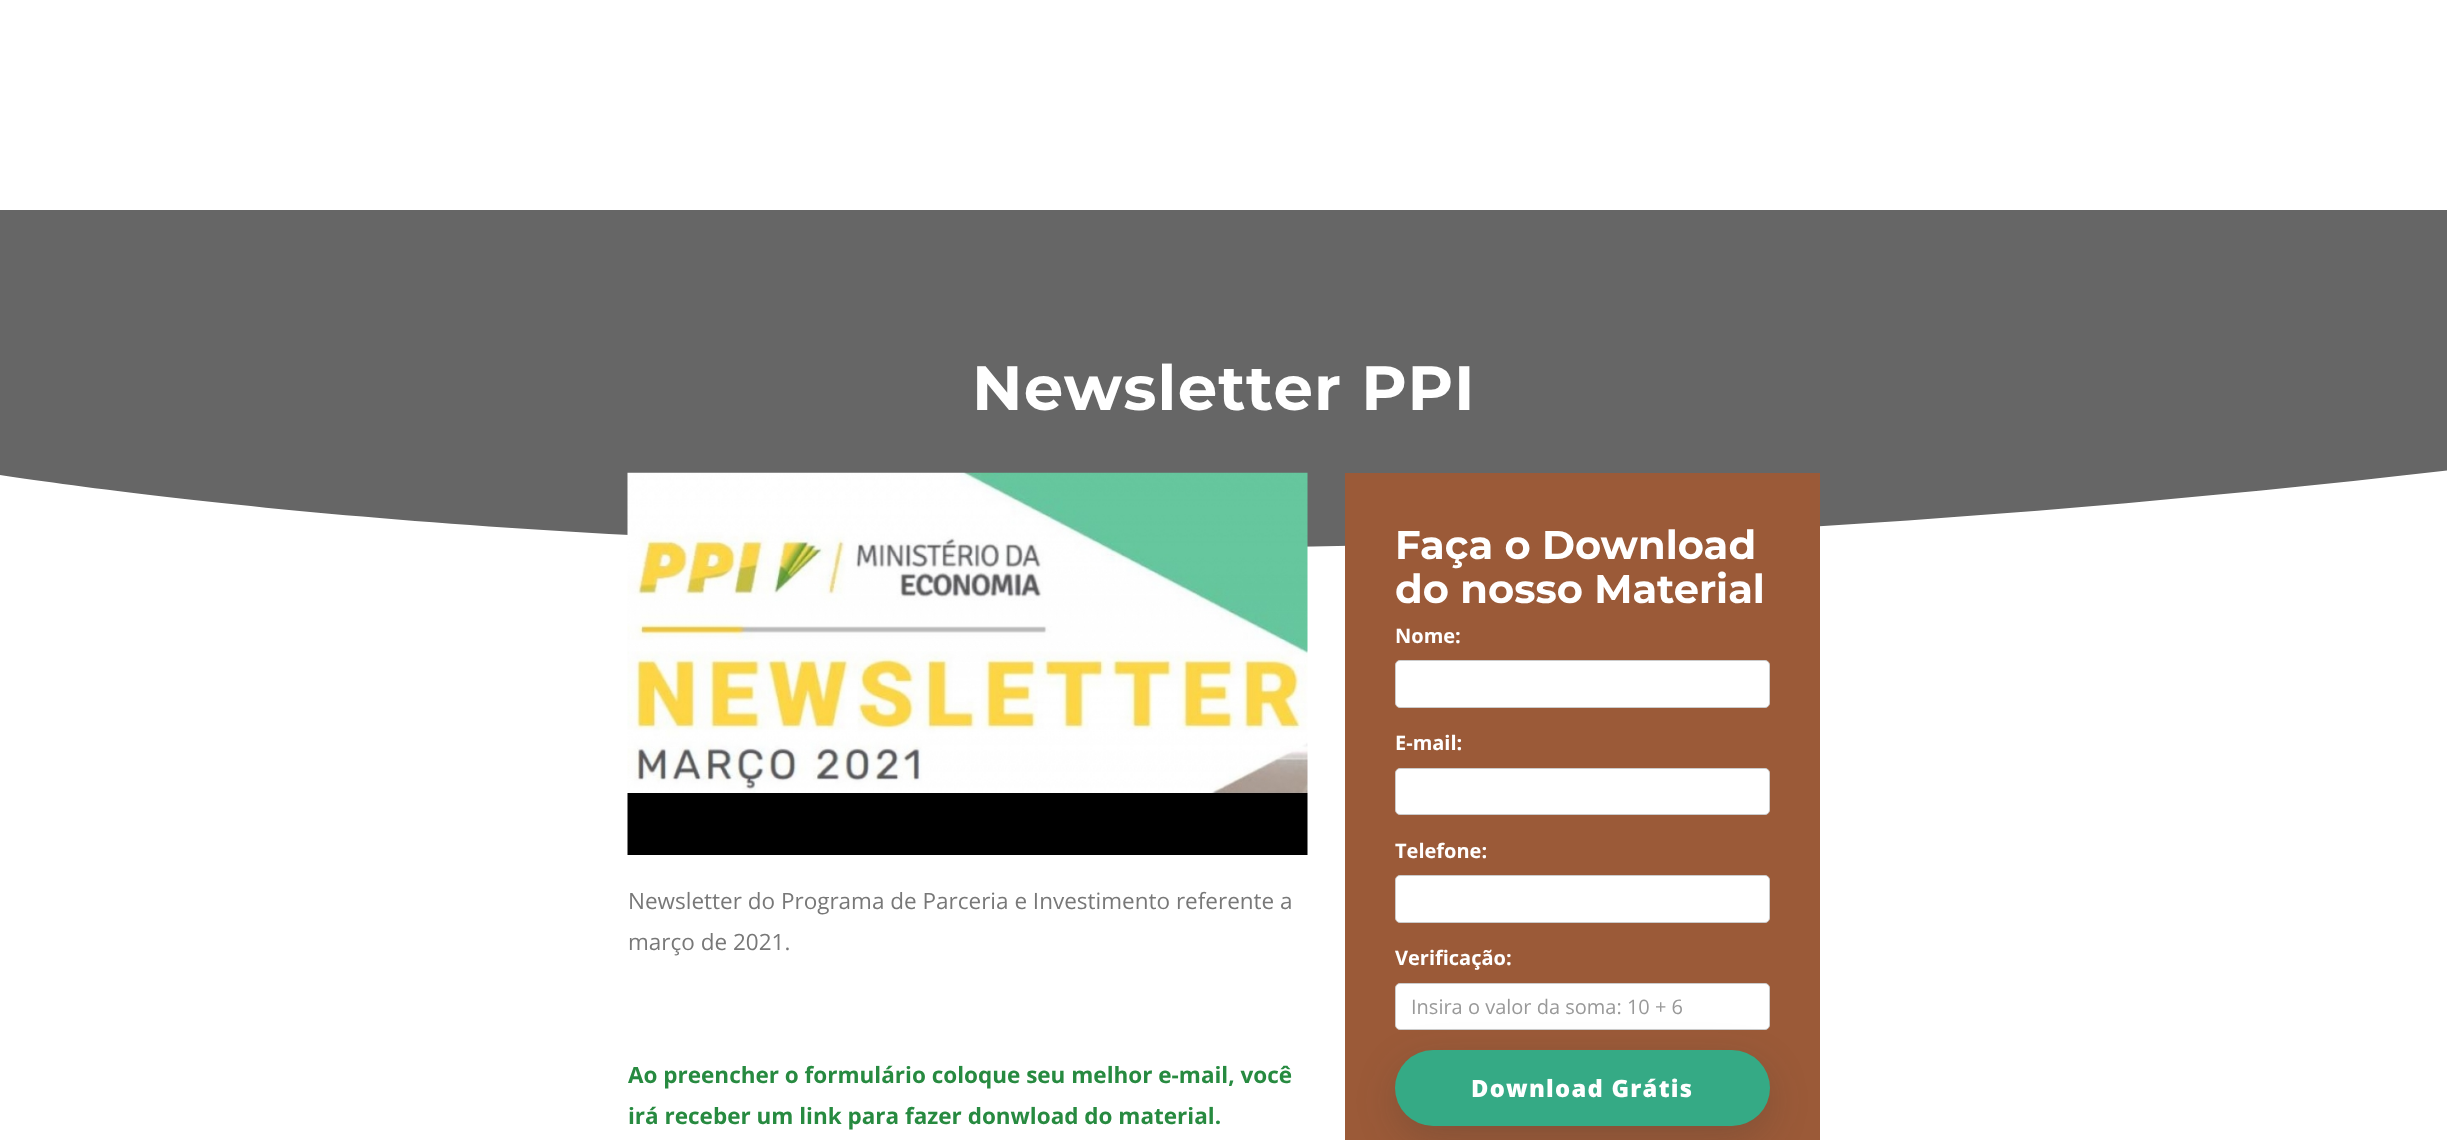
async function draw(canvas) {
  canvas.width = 2447;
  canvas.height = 1140;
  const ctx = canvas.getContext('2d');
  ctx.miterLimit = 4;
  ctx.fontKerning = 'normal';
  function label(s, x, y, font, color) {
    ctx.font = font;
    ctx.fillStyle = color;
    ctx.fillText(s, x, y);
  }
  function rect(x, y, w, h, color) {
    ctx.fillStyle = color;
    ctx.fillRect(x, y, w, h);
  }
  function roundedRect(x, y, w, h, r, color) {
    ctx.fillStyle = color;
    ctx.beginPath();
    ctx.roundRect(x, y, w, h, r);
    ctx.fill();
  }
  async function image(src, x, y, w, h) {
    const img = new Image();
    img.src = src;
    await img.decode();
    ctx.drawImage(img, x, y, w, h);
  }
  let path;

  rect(0, 0, 2447, 1140, '#fff');
  rect(0, 210, 2447, 337, '#666');
  ctx.letterSpacing = '1.25px';
  label('Newsletter PPI', 972, 410, 'bold 62.5px Montserrat', '#fff');
  ctx.save();
  ctx.beginPath();
  ctx.rect(0, 459, 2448, 136);
  ctx.clip();
  path = new Path2D('M-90 460C-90 460 917 658 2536 460V596H-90Z');
  ctx.fill(path);
  ctx.restore();
  await image('assets/img1.png', 627, 472, 681, 383);
  ctx.letterSpacing = '0px';
  label('Newsletter do Programa de Parceria e Investimento referente a', 628, 909, '22.5px Open Sans', '#787878');
  label('março de 2021.', 628, 950, '22.5px Open Sans', '#787878');
  label('Ao preencher o formulário coloque seu melhor e-mail, você', 628, 1083, 'bold 22.5px Open Sans', '#278a40');
  label('irá receber um link para fazer donwload do material.', 628, 1124, 'bold 22.5px Open Sans', '#278a40');
  rect(1345, 473, 475, 667, '#9b5a38');
  label('Faça o Download', 1395, 559, 'bold 40px Montserrat', '#fff');
  label('do nosso Material', 1395, 603, 'bold 40px Montserrat', '#fff');
  label('Nome:', 1395, 643, 'bold 20px Open Sans', '#fff');
  ctx.beginPath();
  ctx.roundRect(1395.5, 660.5, 374, 47, 4.5);
  ctx.fill();
  ctx.strokeStyle = '#ccc';
  ctx.stroke();
  label('E-mail:', 1395, 750, 'bold 20px Open Sans', '#fff');
  ctx.beginPath();
  ctx.roundRect(1395.5, 768.5, 374, 46, 4.5);
  ctx.fill();
  ctx.stroke();
  label('Telefone:', 1395, 858, 'bold 20px Open Sans', '#fff');
  ctx.beginPath();
  ctx.roundRect(1395.5, 875.5, 374, 47, 4.5);
  ctx.fill();
  ctx.stroke();
  label('Verificação:', 1395, 965, 'bold 20px Open Sans', '#fff');
  ctx.beginPath();
  ctx.roundRect(1395.5, 983.5, 374, 46, 4.5);
  ctx.fill();
  ctx.stroke();
  ctx.fillStyle = '#33333338';
  ctx.filter = 'blur(19px)';
  ctx.beginPath();
  ctx.roundRect(1395, 1063, 375, 76, 38);
  ctx.fill();
  ctx.filter = 'none';
  label('Insira o valor da soma: 10 + 6', 1411, 1014, '20px Open Sans', '#999');
  roundedRect(1395, 1050, 375, 76, 38, '#35aa85');
  ctx.letterSpacing = '1.25px';
  label('Download Grátis', 1471, 1097, '800 23.75px Open Sans', '#fff');
}

draw(document.querySelector('canvas'));
